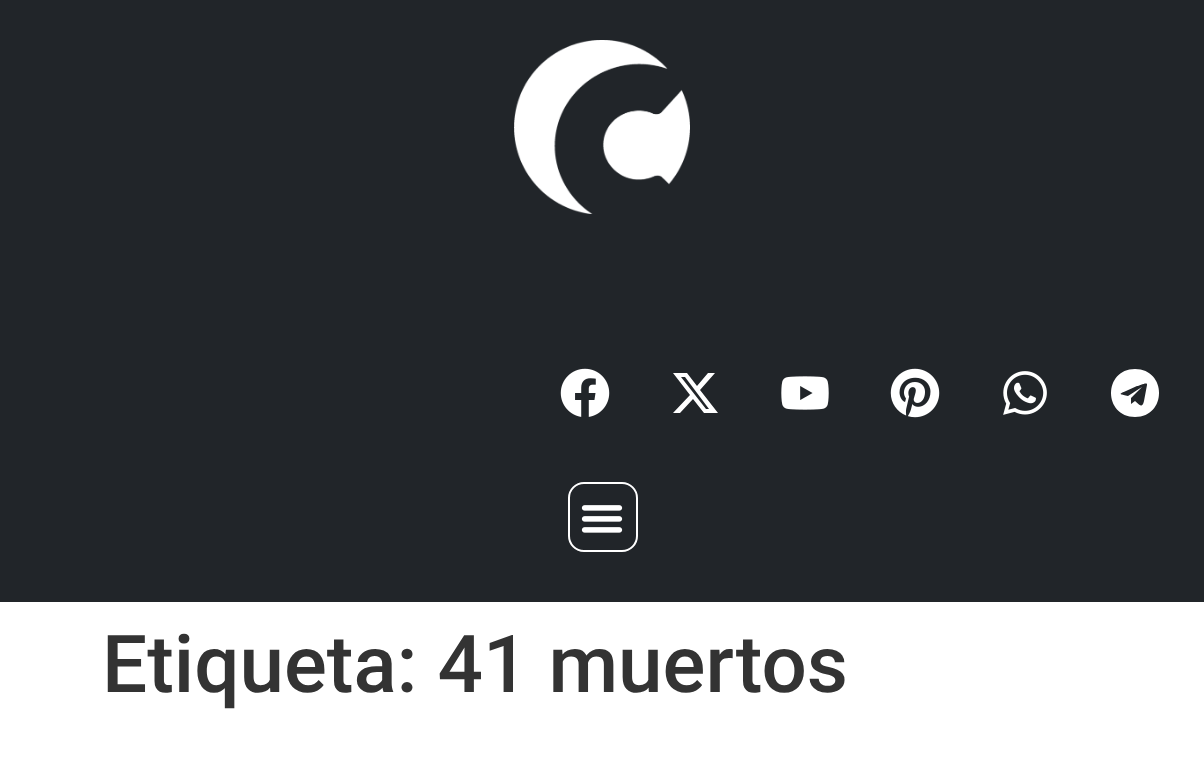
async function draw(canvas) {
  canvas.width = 1204;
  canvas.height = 760;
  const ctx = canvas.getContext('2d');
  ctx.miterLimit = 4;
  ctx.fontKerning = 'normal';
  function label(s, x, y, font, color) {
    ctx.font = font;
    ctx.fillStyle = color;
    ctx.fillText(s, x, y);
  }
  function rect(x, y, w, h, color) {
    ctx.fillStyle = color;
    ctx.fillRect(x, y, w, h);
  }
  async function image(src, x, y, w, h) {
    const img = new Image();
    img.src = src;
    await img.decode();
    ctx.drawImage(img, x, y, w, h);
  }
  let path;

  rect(0, 0, 1204, 760, '#fff');
  rect(0, 0, 1204, 602, '#212529');
  await image('assets/img1.png', 514, 40, 176, 174);
  await image('assets/img2.png', 560, 368, 50, 49);
  ctx.fillStyle = '#fff';
  path = new Path2D('M708 373H715L700 390L718 413H704L693 399L680 413H673L690 395L673 373H687L697 386ZM706 409H709L685 377H681Z');
  ctx.fill(path);
  await image('assets/img3.png', 781, 376, 48, 34);
  await image('assets/img4.png', 890, 368, 50, 50);
  await image('assets/img5.png', 1003, 371, 44, 44);
  path = new Path2D('M1135 369C1103 369 1103 417 1135 417C1167 417 1167 369 1135 369ZM1147 385L1144 401C1142 409 1140 405 1135 401L1131 404V398L1142 387L1128 396C1122 394 1116 395 1126 391L1137 386C1139 386 1148 381 1147 385Z');
  ctx.fill(path);
  ctx.beginPath();
  ctx.roundRect(569, 483, 68, 68, 15);
  ctx.strokeStyle = '#fff';
  ctx.lineWidth = 2;
  ctx.stroke();
  await image('assets/img6.png', 581, 505, 42, 28);
  label('Etiqueta: 41 muertos', 102, 692, '500 80px Roboto', '#333');
}

draw(document.querySelector('canvas'));
